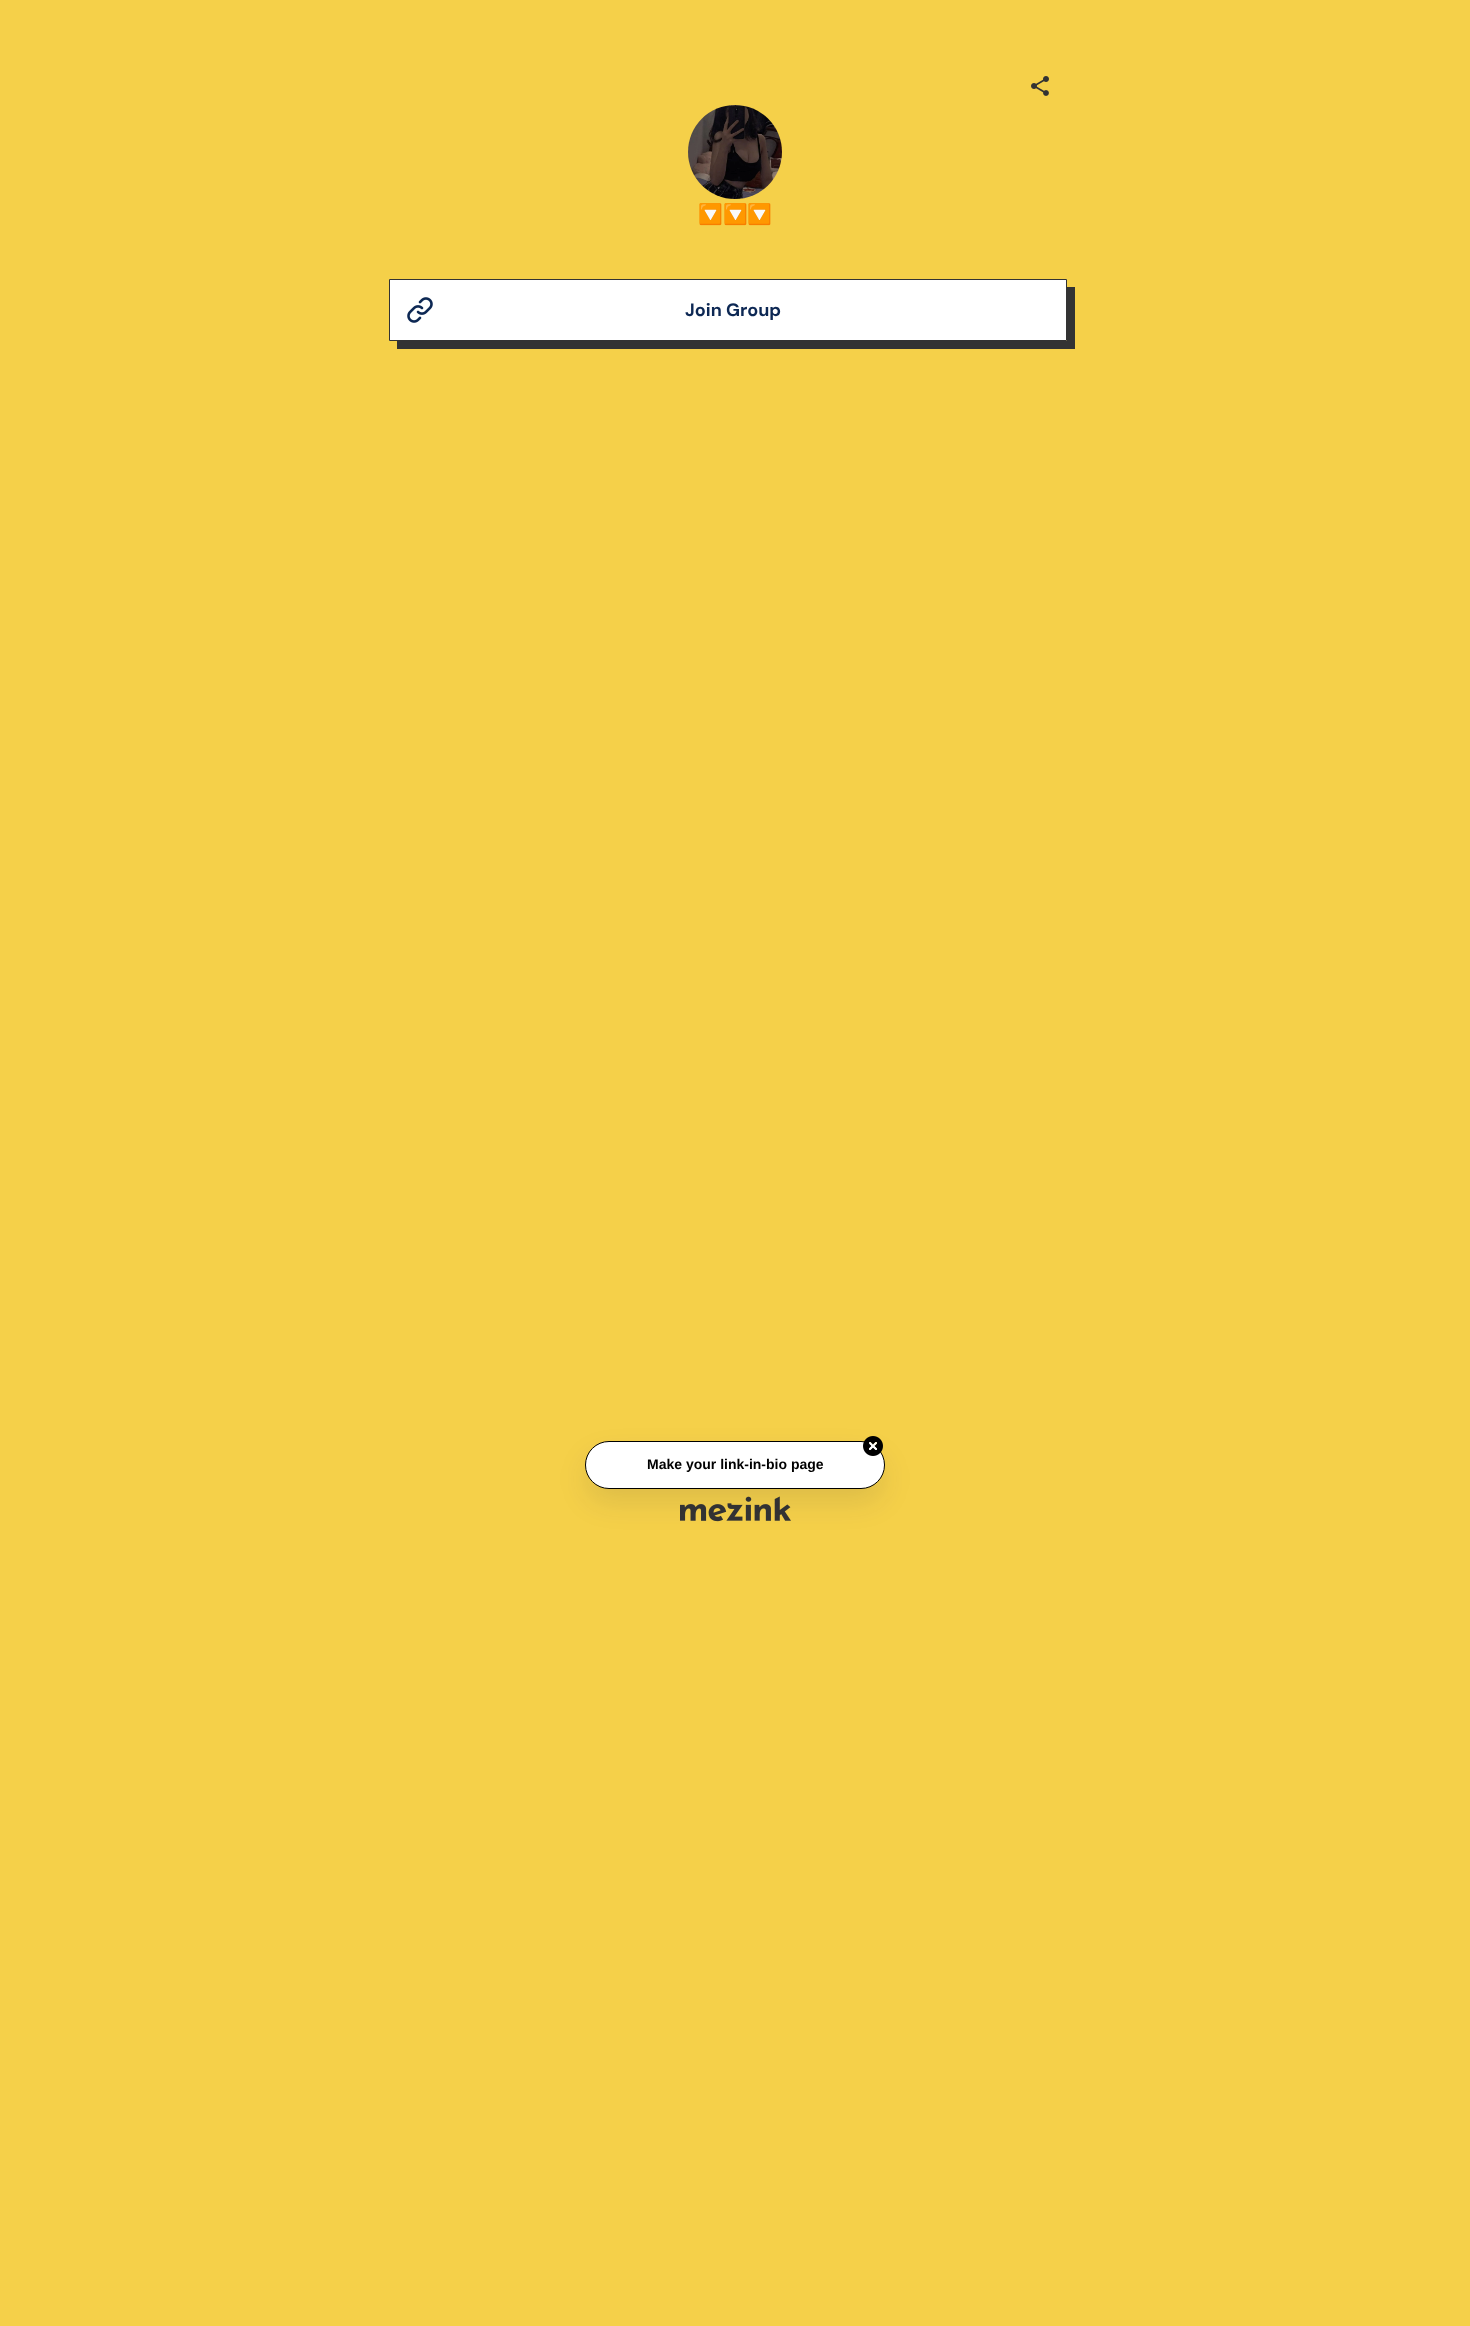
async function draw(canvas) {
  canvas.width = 1470;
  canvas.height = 2326;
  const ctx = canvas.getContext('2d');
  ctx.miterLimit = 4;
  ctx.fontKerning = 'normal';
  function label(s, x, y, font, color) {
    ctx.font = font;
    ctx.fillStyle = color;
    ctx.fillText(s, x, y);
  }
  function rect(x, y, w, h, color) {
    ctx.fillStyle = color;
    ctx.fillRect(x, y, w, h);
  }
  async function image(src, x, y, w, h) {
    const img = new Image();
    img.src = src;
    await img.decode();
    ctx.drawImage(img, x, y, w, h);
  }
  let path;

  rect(0, 0, 1470, 2326, '#f5d049');
  await image('assets/img1.png', 1031, 76, 18, 20);
  await image('assets/img2.png', 688, 105, 94, 94);
  label('🔽🔽🔽', 698, 221, '20px Noto Color Emoji', '#333');
  path = new Path2D('M397 341V349H1075V287H1067V341Z');
  ctx.fill(path);
  ctx.fillStyle = '#fff';
  ctx.beginPath();
  ctx.rect(389.5, 279.5, 677, 61);
  ctx.fill();
  ctx.strokeStyle = '#333';
  ctx.stroke();
  await image('assets/img3.png', 407, 297, 26, 26);
  label('Join Group', 685, 316, 'bold 18px DM Sans', '#0d2854');
  await image('assets/img5.png', 680, 1496, 111, 26);
  ctx.fillStyle = '#191f3d1a';
  ctx.filter = 'blur(14px)';
  ctx.beginPath();
  ctx.roundRect(585, 1455, 300, 48, 24);
  ctx.fill();
  ctx.filter = 'none';
  ctx.fillStyle = '#fff';
  ctx.beginPath();
  ctx.roundRect(585.5, 1441.5, 299, 47, 23.5);
  ctx.fill();
  ctx.strokeStyle = '#000';
  ctx.stroke();
  await image('assets/img4.png', 863, 1436, 20, 20);
  label('Make your link-in-bio page', 647, 1469, 'bold 14px Arimo', '#000');
}

draw(document.querySelector('canvas'));
